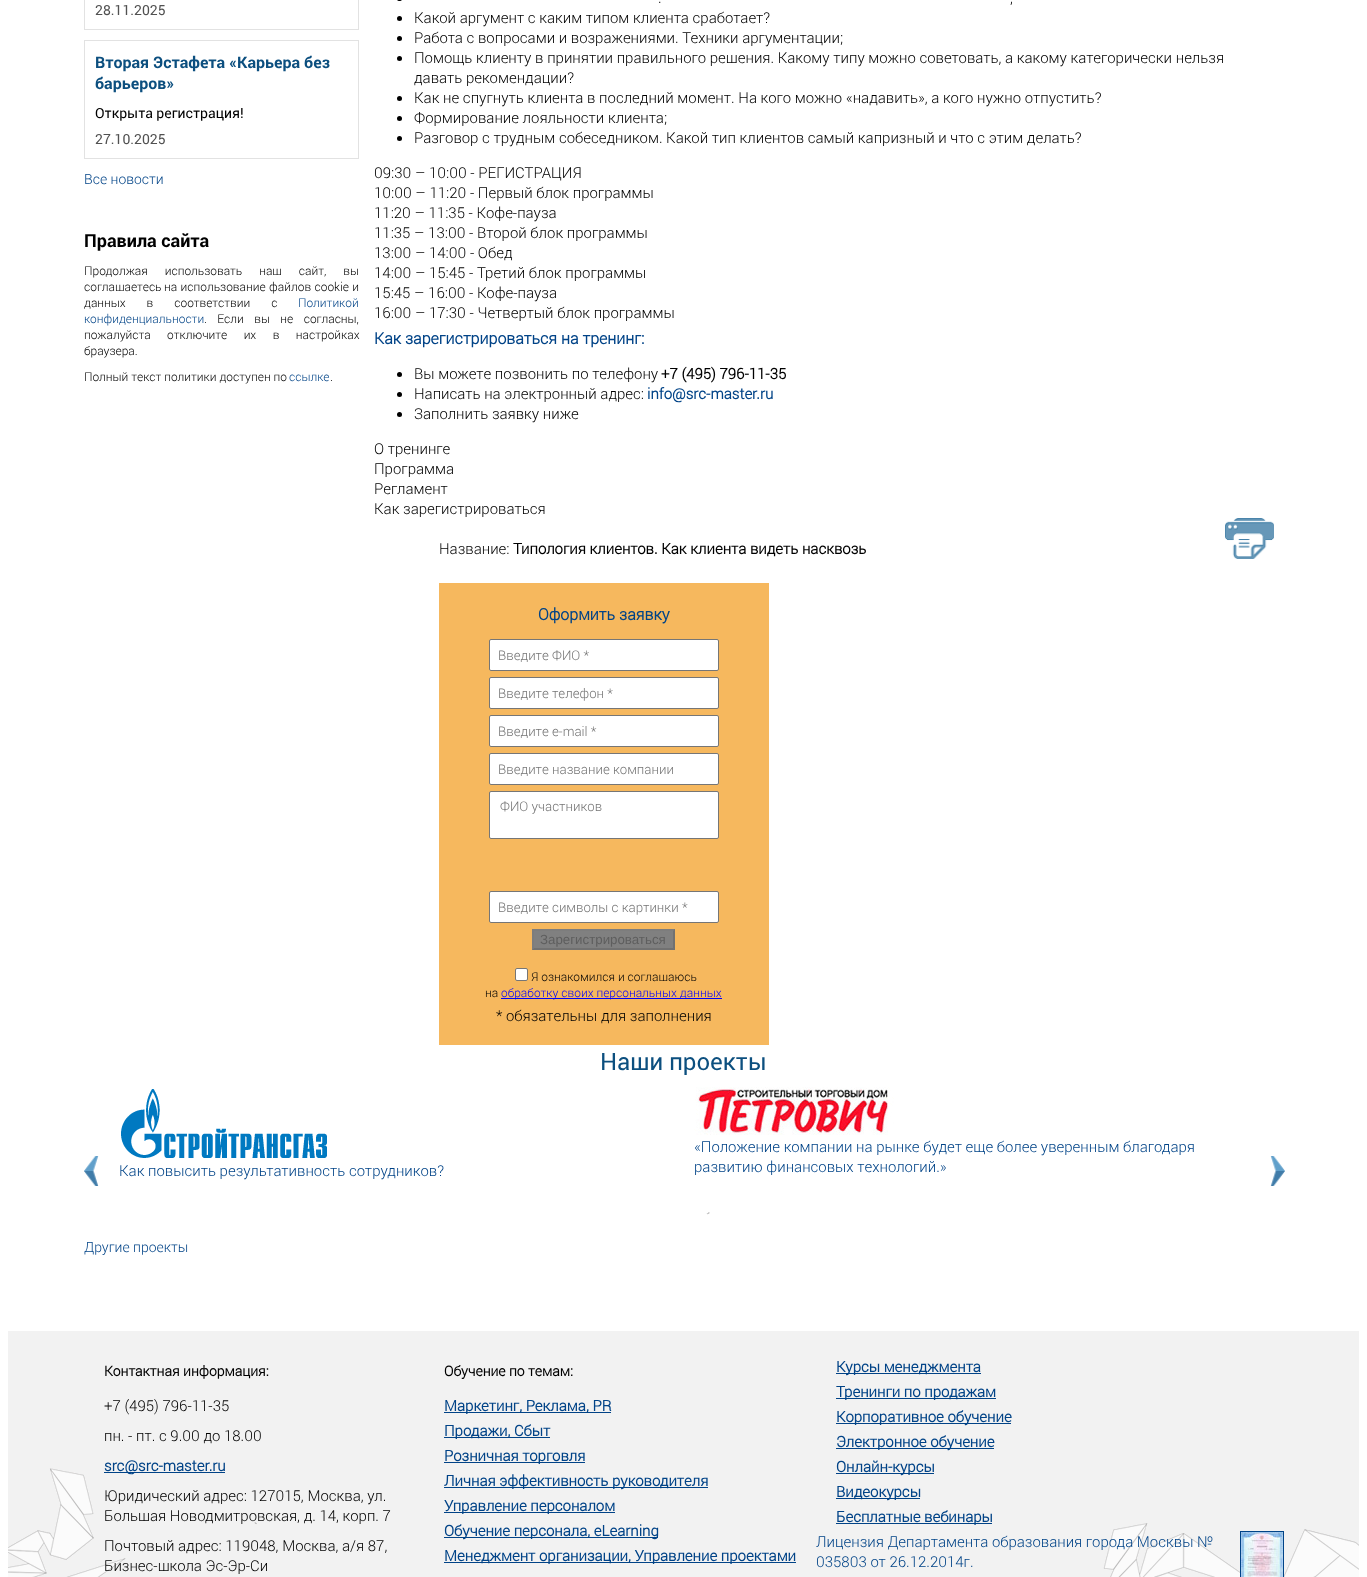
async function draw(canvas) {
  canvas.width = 1367;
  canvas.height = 1577;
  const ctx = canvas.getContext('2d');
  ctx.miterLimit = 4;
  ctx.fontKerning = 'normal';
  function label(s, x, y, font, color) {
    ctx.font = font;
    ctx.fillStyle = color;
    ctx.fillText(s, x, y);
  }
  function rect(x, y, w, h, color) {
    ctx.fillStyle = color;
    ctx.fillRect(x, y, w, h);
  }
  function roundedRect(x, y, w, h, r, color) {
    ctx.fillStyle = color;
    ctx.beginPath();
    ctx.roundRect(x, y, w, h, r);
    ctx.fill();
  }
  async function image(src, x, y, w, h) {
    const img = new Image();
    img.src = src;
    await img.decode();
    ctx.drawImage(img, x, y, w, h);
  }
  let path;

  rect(0, 0, 1367, 1577, '#fff');
  ctx.strokeStyle = '#e2e2e2';
  ctx.strokeRect(84.5, -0.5, 274, 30);
  label('28.11.2025', 95, 15, '14px Roboto', '#515151');
  ctx.strokeRect(84.5, 40.5, 274, 118);
  label('Вторая Эстафета «Карьера без', 95, 68, 'bold 16px "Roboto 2"', '#0c4f7f');
  label('барьеров»', 95, 89, 'bold 16px "Roboto 2"', '#0c4f7f');
  label('Открыта регистрация!', 95, 118, '14px Roboto', '#000');
  label('27.10.2025', 95, 144, '14px Roboto', '#515151');
  label('Все новости', 84, 184, '300 14px Roboto', '#014387');
  label('Правила сайта', 84, 247, 'bold 18px "Roboto 2"', '#000');
  ctx.wordSpacing = '14px';
  label('Продолжая использовать наш сайт, вы', 84, 275, '300 12px Roboto', '#000');
  ctx.wordSpacing = '0px';
  label('соглашаетесь', 84, 291, '300 12px Roboto', '#000');
  ctx.wordSpacing = '0.5px';
  label('на использование файлов cookie и', 164, 291, '300 12px Roboto', '#000');
  ctx.wordSpacing = '18px';
  label('данных в соответствии с', 84, 307, '300 12px Roboto', '#000');
  ctx.wordSpacing = '0px';
  label('Политикой', 298, 307, '300 12px Roboto', '#014387');
  label('конфиденциальности', 84, 323, '300 12px Roboto', '#014387');
  ctx.wordSpacing = '7.5px';
  label('. Если вы не согласны,', 204, 323, '300 12px Roboto', '#000');
  ctx.wordSpacing = '13.5px';
  label('пожалуйста отключите их в настройках', 84, 339, '300 12px Roboto', '#000');
  ctx.wordSpacing = '0px';
  label('браузера.', 84, 355, '300 12px Roboto', '#000');
  label('Полный текст политики доступен по', 84, 381, '300 12px Roboto', '#000');
  label('ссылке', 289, 381, '300 12px Roboto', '#014387');
  label('.', 330, 381, '300 12px Roboto', '#000');
  roundedRect(397, -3, 5, 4, 2.5, '#000');
  label('.', 658, 3, '300 15px Roboto', '#000');
  label(',', 1010, 3, '300 15px Roboto', '#000');
  ctx.beginPath();
  ctx.arc(399.5, 18.5, 2.5, 0, 2 * Math.PI);
  ctx.fill();
  label('Какой аргумент с каким типом клиента сработает?', 414, 23, '300 15px Roboto', '#000');
  ctx.beginPath();
  ctx.arc(399.5, 38.5, 2.5, 0, 2 * Math.PI);
  ctx.fill();
  label('Работа с вопросами и возражениями. Техники аргументации;', 414, 43, '300 15px Roboto', '#000');
  ctx.beginPath();
  ctx.arc(399.5, 58.5, 2.5, 0, 2 * Math.PI);
  ctx.fill();
  label('Помощь клиенту в принятии правильного решения. Какому типу можно советовать, а какому категорически нельзя', 414, 63, '300 15px Roboto', '#000');
  label('давать рекомендации?', 414, 83, '300 15px Roboto', '#000');
  ctx.beginPath();
  ctx.arc(399.5, 98.5, 2.5, 0, 2 * Math.PI);
  ctx.fill();
  label('Как не спугнуть клиента в последний момент. На кого можно «надавить», а кого нужно отпустить?', 414, 103, '300 15px Roboto', '#000');
  ctx.beginPath();
  ctx.arc(399.5, 118.5, 2.5, 0, 2 * Math.PI);
  ctx.fill();
  label('Формирование лояльности клиента;', 414, 123, '300 15px Roboto', '#000');
  ctx.beginPath();
  ctx.arc(399.5, 138.5, 2.5, 0, 2 * Math.PI);
  ctx.fill();
  label('Разговор с трудным собеседником. Какой тип клиентов самый капризный и что с этим делать?', 414, 143, '300 15px Roboto', '#000');
  label('09:30 – 10:00 - РЕГИСТРАЦИЯ', 374, 178, '300 15px Roboto', '#000');
  label('10:00 – 11:20 - Первый блок программы', 374, 198, '300 15px Roboto', '#000');
  label('11:20 – 11:35 - Кофе-пауза', 374, 218, '300 15px Roboto', '#000');
  label('11:35 – 13:00 - Второй блок программы', 374, 238, '300 15px Roboto', '#000');
  label('13:00 – 14:00 - Обед', 374, 258, '300 15px Roboto', '#000');
  label('14:00 – 15:45 - Третий блок программы', 374, 278, '300 15px Roboto', '#000');
  label('15:45 – 16:00 - Кофе-пауза', 374, 298, '300 15px Roboto', '#000');
  label('16:00 – 17:30 - Четвертый блок программы', 374, 318, '300 15px Roboto', '#000');
  label('Как зарегистрироваться на тренинг:', 374, 344, 'bold 16px Roboto', '#014387');
  ctx.fillStyle = '#000';
  ctx.beginPath();
  ctx.arc(399.5, 374.5, 2.5, 0, 2 * Math.PI);
  ctx.fill();
  label('Вы можете позвонить по телефону', 414, 379, '300 15px Roboto', '#000');
  label('+7 (495) 796-11-35', 661, 379, 'bold 15px Roboto', '#000');
  ctx.beginPath();
  ctx.arc(399.5, 394.5, 2.5, 0, 2 * Math.PI);
  ctx.fill();
  label('Написать на электронный адрес:', 414, 399, '300 15px Roboto', '#000');
  label('info@src-master.ru', 647, 399, 'bold 15px Roboto', '#014387');
  ctx.fillStyle = '#000';
  ctx.beginPath();
  ctx.arc(399.5, 414.5, 2.5, 0, 2 * Math.PI);
  ctx.fill();
  label('Заполнить заявку ниже', 414, 419, '300 15px Roboto', '#000');
  label('О тренинге', 374, 454, '300 15px Roboto', '#000');
  label('Программа', 374, 474, '300 15px Roboto', '#000');
  label('Регламент', 374, 494, '300 15px Roboto', '#000');
  label('Как зарегистрироваться', 374, 514, '300 15px Roboto', '#000');
  await image('assets/img1.png', 1225, 518, 49, 41);
  label('Название:', 439, 554, '300 15px Roboto', '#000');
  label('Типология клиентов. Как клиента видеть насквозь', 513, 554, 'bold 15px Roboto', '#000');
  rect(439, 583, 330, 462, '#f6b85e');
  label('Оформить заявку', 538, 620, 'bold 16px Roboto', '#014387');
  ctx.fillStyle = '#fff';
  ctx.beginPath();
  ctx.roundRect(489.5, 639.5, 229, 31, 1.5);
  ctx.fill();
  ctx.strokeStyle = '#767676';
  ctx.stroke();
  label('Введите ФИО *', 498, 660, '300 13.3px Roboto', '#757575');
  ctx.fillStyle = '#fff';
  ctx.beginPath();
  ctx.roundRect(489.5, 677.5, 229, 31, 1.5);
  ctx.fill();
  ctx.stroke();
  label('Введите телефон *', 498, 698, '300 13.3px Roboto', '#757575');
  ctx.fillStyle = '#fff';
  ctx.beginPath();
  ctx.roundRect(489.5, 715.5, 229, 31, 1.5);
  ctx.fill();
  ctx.stroke();
  label('Введите e-mail *', 498, 736, '300 13.3px Roboto', '#757575');
  ctx.fillStyle = '#fff';
  ctx.beginPath();
  ctx.roundRect(489.5, 753.5, 229, 31, 1.5);
  ctx.fill();
  ctx.stroke();
  label('Введите название компании', 498, 774, '300 13.3px Roboto', '#757575');
  ctx.fillStyle = '#fff';
  ctx.beginPath();
  ctx.roundRect(489.5, 791.5, 229, 47, 1.5);
  ctx.fill();
  ctx.stroke();
  label('ФИО участников', 500, 811, '300 13.3px Roboto', '#757575');
  ctx.fillStyle = '#fff';
  ctx.beginPath();
  ctx.roundRect(489.5, 891.5, 229, 31, 1.5);
  ctx.fill();
  ctx.stroke();
  label('Введите символы с картинки *', 498, 912, '300 13.3px Roboto', '#757575');
  rect(532, 929, 143, 21, '#808080');
  ctx.fillStyle = '#7d7d7d';
  path = new Path2D('M532 929H675L673 931H534Z');
  ctx.fill(path);
  ctx.fillStyle = '#717171';
  path = new Path2D('M675 929V950L673 948V931Z');
  ctx.fill(path);
  ctx.fillStyle = '#4f4f4f4d';
  path = new Path2D('M675 950H532L534 948H673Z');
  ctx.fill(path);
  ctx.fillStyle = '#7676764d';
  path = new Path2D('M532 950V929L534 931V948Z');
  ctx.fill(path);
  label('Зарегистрироваться', 540, 944, '13.3px Liberation Sans', '#5e5e5e');
  ctx.fillStyle = '#fff';
  ctx.beginPath();
  ctx.roundRect(515.5, 968.5, 12, 12, 1.5);
  ctx.fill();
  ctx.stroke();
  label('Я ознакомился и соглашаюсь', 531, 981, '300 12px Roboto', '#000');
  label('на', 485, 997, '300 12px Roboto', '#000');
  rect(501, 998, 221, 1, '#00f');
  label('обработку своих персональных данных', 501, 997, '300 12px Roboto', '#00f');
  label('* обязательны для заполнения', 496, 1021, '300 15px Roboto', '#000');
  label('Наши проекты', 600, 1070, '24px Roboto', '#0c4f7f');
  await image('assets/img2.png', 84, 1156, 15, 30);
  await image('assets/img3.png', 121, 1089, 206, 69);
  label('Как повысить результативность сотрудников?', 119, 1176, '300 15px Roboto', '#014387');
  await image('assets/img4.png', 694, 1087, 200, 48);
  label('«Положение компании на рынке будет еще более уверенным благодаря', 694, 1152, '300 15px Roboto', '#014387');
  label('развитию финансовых технологий.»', 694, 1172, '300 15px Roboto', '#014387');
  await image('assets/img5.png', 1270, 1156, 15, 30);
  rect(8, 1331, 1351, 246, '#f2f2f2');
  await image('assets/img6.png', 8, 1212, 702, 365);
  label('Другие проекты', 84, 1252, '300 14px Roboto', '#014387');
  label('Контактная информация:', 104, 1376, 'bold 14px Roboto', '#000');
  label('+7 (495) 796-11-35', 104, 1411, '300 15px Roboto', '#000');
  label('пн. - пт. с 9.00 до 18.00', 104, 1441, '300 15px Roboto', '#000');
  rect(104, 1472, 121, 1, '#014387');
  label('src@src-master.ru', 104, 1471, 'bold 15px Roboto', '#014387');
  label('Юридический адрес: 127015, Москва, ул.', 104, 1501, '300 15px Roboto', '#000');
  await image('assets/img8.png', 254, 1522, 1105, 55);
  label('Большая Новодмитровская, д. 14, корп. 7', 104, 1521, '300 15px Roboto', '#000');
  label('Почтовый адрес: 119048, Москва, а/я 87,', 104, 1551, '300 15px Roboto', '#000');
  label('Бизнес-школа Эс-Эр-Си', 104, 1571, '300 15px Roboto', '#000');
  label('Обучение по темам:', 444, 1376, 'bold 14px Roboto', '#000');
  rect(444, 1412, 167, 1, '#014387');
  label('Маркетинг, Реклама, PR', 444, 1411, 'bold 15px Roboto', '#014387');
  rect(444, 1437, 106, 1, '#014387');
  label('Продажи, Сбыт', 444, 1436, 'bold 15px Roboto', '#014387');
  rect(444, 1462, 141, 1, '#014387');
  label('Розничная торговля', 444, 1461, 'bold 15px Roboto', '#014387');
  rect(444, 1487, 264, 1, '#014387');
  label('Личная эффективность руководителя', 444, 1486, 'bold 15px Roboto', '#014387');
  rect(444, 1512, 171, 1, '#014387');
  label('Управление персоналом', 444, 1511, 'bold 15px Roboto', '#014387');
  rect(444, 1537, 214, 1, '#014387');
  label('Обучение персонала, eLearning', 444, 1536, 'bold 15px Roboto', '#014387');
  rect(444, 1562, 352, 1, '#014387');
  label('Менеджмент организации, Управление проектами', 444, 1561, 'bold 15px Roboto', '#014387');
  rect(836, 1373, 145, 1, '#014387');
  label('Курсы менеджмента', 836, 1372, 'bold 15px Roboto', '#014387');
  rect(836, 1398, 160, 1, '#014387');
  label('Тренинги по продажам', 836, 1397, 'bold 15px Roboto', '#014387');
  rect(836, 1423, 175, 1, '#014387');
  label('Корпоративное обучение', 836, 1422, 'bold 15px Roboto', '#014387');
  rect(836, 1448, 158, 1, '#014387');
  label('Электронное обучение', 836, 1447, 'bold 15px Roboto', '#014387');
  rect(836, 1473, 98, 1, '#014387');
  label('Онлайн-курсы', 836, 1472, 'bold 15px Roboto', '#014387');
  rect(836, 1498, 84, 1, '#014387');
  label('Видеокурсы', 836, 1497, 'bold 15px Roboto', '#014387');
  rect(836, 1523, 156, 1, '#014387');
  label('Бесплатные вебинары', 836, 1522, 'bold 15px Roboto', '#014387');
  label('Лицензия Департамента образования города Москвы №', 816, 1547, '300 15px Roboto', '#014387');
  ctx.strokeStyle = '#014387';
  ctx.strokeRect(1240.5, 1531.5, 43, 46);
  await image('assets/img7.png', 1241, 1532, 42, 45);
  label('035803 от 26.12.2014г.', 816, 1567, '300 15px Roboto', '#014387');
}

draw(document.querySelector('canvas'));
